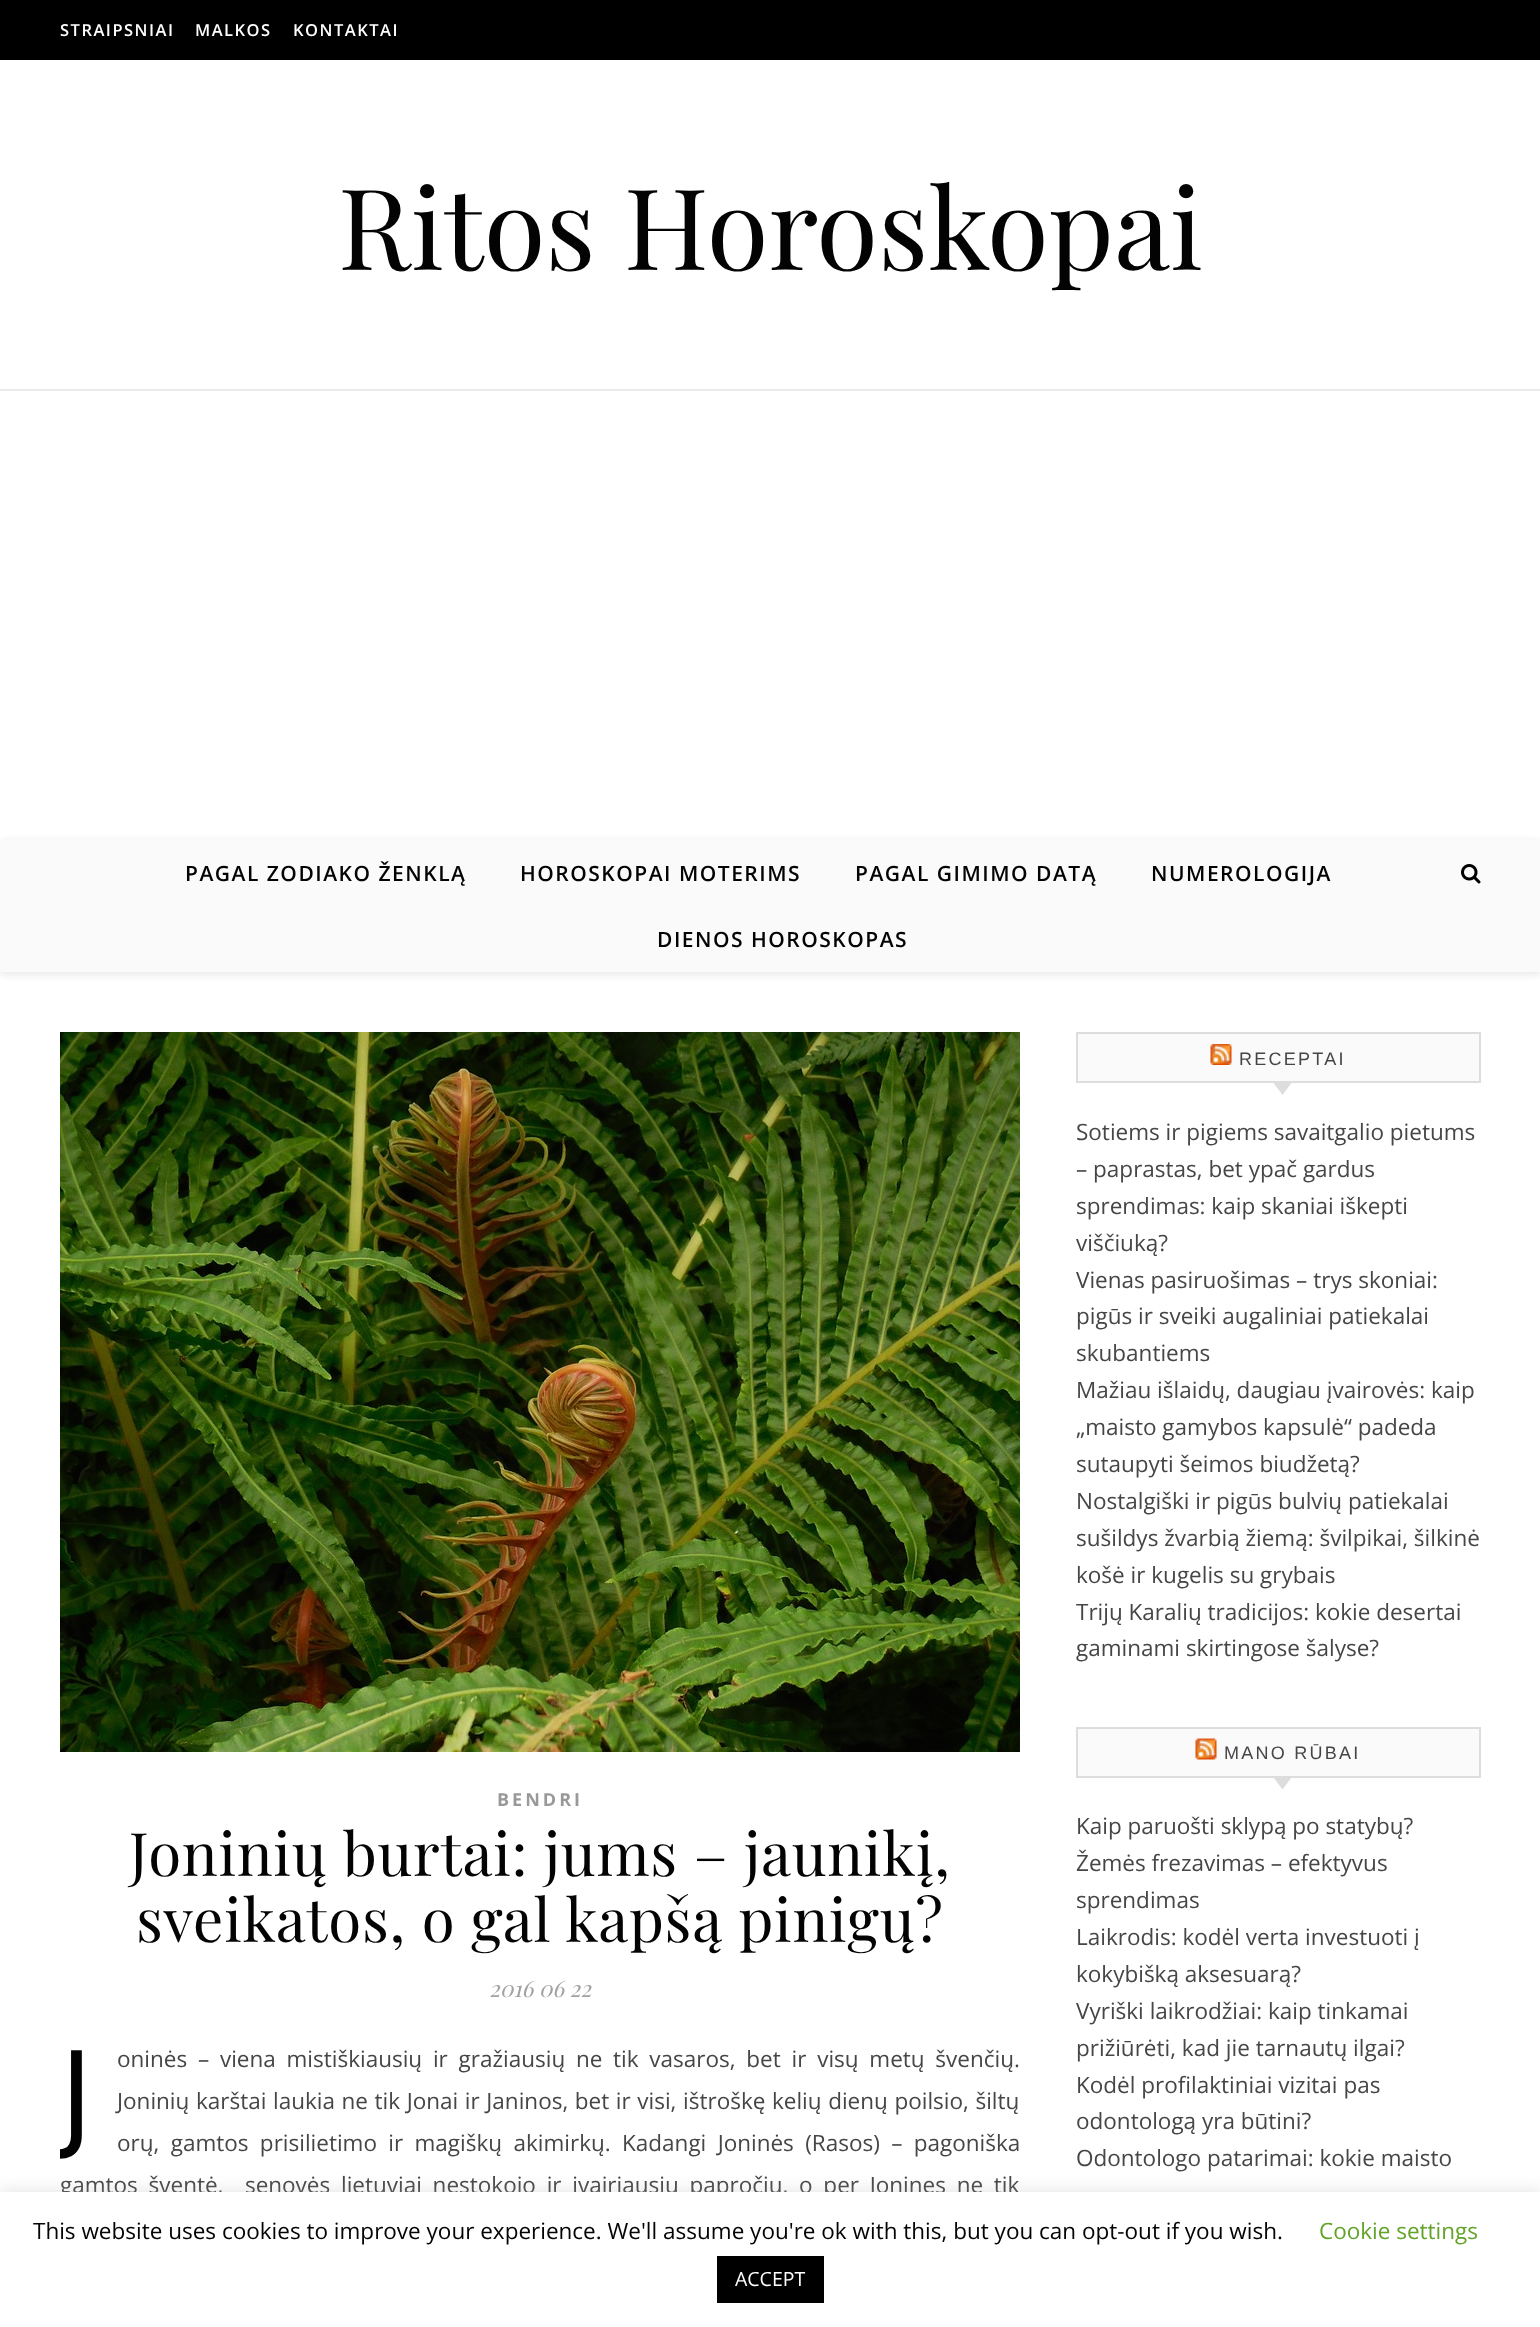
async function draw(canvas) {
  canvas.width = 1540;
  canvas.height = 2327;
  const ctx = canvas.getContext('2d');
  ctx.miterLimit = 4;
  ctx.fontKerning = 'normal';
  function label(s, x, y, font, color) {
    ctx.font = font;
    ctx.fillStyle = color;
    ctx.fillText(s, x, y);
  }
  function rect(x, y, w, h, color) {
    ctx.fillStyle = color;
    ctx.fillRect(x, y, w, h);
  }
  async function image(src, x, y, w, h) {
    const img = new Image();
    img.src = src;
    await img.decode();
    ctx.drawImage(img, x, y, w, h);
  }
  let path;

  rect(0, 0, 1540, 2327, '#fff');
  rect(0, 0, 1540, 60, '#000');
  ctx.letterSpacing = '1.5px';
  label('STRAIPSNIAI', 60, 36, '600 16.5px Open Sans', '#fff');
  label('MALKOS', 195, 36, '600 16.5px Open Sans', '#fff');
  label('KONTAKTAI', 293, 36, '600 16.5px Open Sans', '#fff');
  rect(0, 389, 1540, 2, '#ebebeb');
  ctx.letterSpacing = '0px';
  label('Ritos Horoskopai', 338, 270, '112.5px Playfair Display', '#030303');
  ctx.fillStyle = '#0000001a';
  ctx.filter = 'blur(4px)';
  ctx.beginPath();
  ctx.rect(0, 842, 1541, 132);
  ctx.fill();
  ctx.filter = 'none';
  rect(0, 840, 1540, 132, '#fafafa');
  ctx.letterSpacing = '1.5px';
  label('PAGAL ZODIAKO ŽENKLĄ', 185, 881, '600 21px Open Sans', '#030303');
  label('HOROSKOPAI MOTERIMS', 520, 881, '600 21px Open Sans', '#030303');
  label('PAGAL GIMIMO DATĄ', 855, 881, '600 21px Open Sans', '#030303');
  label('NUMEROLOGIJA', 1151, 881, '600 21px Open Sans', '#030303');
  label('DIENOS HOROSKOPAS', 657, 947, '600 21px Open Sans', '#030303');
  await image('assets/img1.png', 1461, 864, 20, 20);
  await image('assets/img2.png', 60, 1032, 960, 720);
  ctx.letterSpacing = '3px';
  label('BENDRI', 497, 1806, 'bold 18px Open Sans', '#999');
  ctx.letterSpacing = '0.75px';
  label('Joninių burtai: jums – jaunikį,', 129, 1876, '60px Playfair Display', '#030303');
  label('sveikatos, o gal kapšą pinigų?', 136, 1942, '60px Playfair Display', '#030303');
  ctx.letterSpacing = '0px';
  label('2016 06 22', 489, 1997, 'italic 22.5px Playfair Display', '#a1a1a1');
  ctx.save();
  ctx.beginPath();
  ctx.rect(60, 2037, 960, 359);
  ctx.clip();
  label('J', 60, 2136, '120px Noto Sans', '#030303');
  ctx.restore();
  ctx.wordSpacing = '4.9px';
  label('oninės – viena mistiškiausių ir gražiausių ne tik vasaros, bet ir visų metų švenčių.', 117, 2067, '22.5px Open Sans', '#464646');
  ctx.wordSpacing = '0.75px';
  label('Joninių karštai laukia ne tik Jonai ir Janinos, bet ir visi, ištroškę kelių dienų poilsio, šiltų', 117, 2109, '22.5px Open Sans', '#464646');
  ctx.wordSpacing = '5.5px';
  label('orų, gamtos prisilietimo ir magiškų akimirkų. Kadangi Joninės (Rasos) – pagoniška', 117, 2151, '22.5px Open Sans', '#464646');
  ctx.wordSpacing = '4.9px';
  label('gamtos šventė,  senovės lietuviai nestokojo ir įvairiausių papročių, o per Jonines ne tik', 60, 2193, '22.5px Open Sans', '#464646');
  ctx.fillStyle = '#fafafa';
  ctx.beginPath();
  ctx.rect(1077, 1033, 403, 49);
  ctx.fill();
  ctx.strokeStyle = '#ddd';
  ctx.lineWidth = 2;
  ctx.stroke();
  await image('assets/img3.png', 1210, 1044, 22, 21);
  ctx.letterSpacing = '2.25px';
  ctx.wordSpacing = '0px';
  label('RECEPTAI', 1239, 1065, '18px Liberation Sans', '#464646');
  ctx.fillStyle = '#ddd';
  path = new Path2D('M1273.5 1083H1291.5L1282.5 1095Z');
  ctx.fill(path);
  ctx.letterSpacing = '0px';
  label('Sotiems ir pigiems savaitgalio pietums', 1076, 1140, '22.5px Open Sans', '#464646');
  label('– paprastas, bet ypač gardus', 1076, 1177, '22.5px Open Sans', '#464646');
  label('sprendimas: kaip skaniai iškepti', 1076, 1214, '22.5px Open Sans', '#464646');
  label('viščiuką?', 1076, 1251, '22.5px Open Sans', '#464646');
  label('Vienas pasiruošimas – trys skoniai:', 1076, 1288, '22.5px Open Sans', '#464646');
  label('pigūs ir sveiki augaliniai patiekalai', 1076, 1324, '22.5px Open Sans', '#464646');
  label('skubantiems', 1076, 1361, '22.5px Open Sans', '#464646');
  label('Mažiau išlaidų, daugiau įvairovės: kaip', 1076, 1398, '22.5px Open Sans', '#464646');
  label('„maisto gamybos kapsulė“ padeda', 1076, 1435, '22.5px Open Sans', '#464646');
  label('sutaupyti šeimos biudžetą?', 1076, 1472, '22.5px Open Sans', '#464646');
  label('Nostalgiški ir pigūs bulvių patiekalai', 1076, 1509, '22.5px Open Sans', '#464646');
  label('sušildys žvarbią žiemą: švilpikai, šilkinė', 1076, 1546, '22.5px Open Sans', '#464646');
  label('košė ir kugelis su grybais', 1076, 1583, '22.5px Open Sans', '#464646');
  label('Trijų Karalių tradicijos: kokie desertai', 1076, 1620, '22.5px Open Sans', '#464646');
  label('gaminami skirtingose šalyse?', 1076, 1656, '22.5px Open Sans', '#464646');
  ctx.fillStyle = '#fafafa';
  ctx.beginPath();
  ctx.rect(1077, 1728, 403, 49);
  ctx.fill();
  ctx.stroke();
  await image('assets/img4.png', 1195, 1738, 22, 22);
  ctx.letterSpacing = '2.25px';
  label('MANO RŪBAI', 1224, 1759, '18px Liberation Sans', '#464646');
  ctx.fillStyle = '#ddd';
  path = new Path2D('M1273.5 1777.5H1291.5L1282.5 1789.5Z');
  ctx.fill(path);
  ctx.letterSpacing = '0px';
  label('Kaip paruošti sklypą po statybų?', 1076, 1834, '22.5px Open Sans', '#464646');
  label('Žemės frezavimas – efektyvus', 1076, 1871, '22.5px Open Sans', '#464646');
  label('sprendimas', 1076, 1908, '22.5px Open Sans', '#464646');
  label('Laikrodis: kodėl verta investuoti į', 1076, 1945, '22.5px Open Sans', '#464646');
  label('kokybišką aksesuarą?', 1076, 1982, '22.5px Open Sans', '#464646');
  label('Vyriški laikrodžiai: kaip tinkamai', 1076, 2019, '22.5px Open Sans', '#464646');
  label('prižiūrėti, kad jie tarnautų ilgai?', 1076, 2056, '22.5px Open Sans', '#464646');
  label('Kodėl profilaktiniai vizitai pas', 1076, 2093, '22.5px Open Sans', '#464646');
  label('odontologą yra būtini?', 1076, 2129, '22.5px Open Sans', '#464646');
  label('Odontologo patarimai: kokie maisto', 1076, 2166, '22.5px Open Sans', '#464646');
  ctx.fillStyle = '#acabab4d';
  ctx.filter = 'blur(7.5px)';
  ctx.beginPath();
  ctx.rect(0, 2190, 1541, 137);
  ctx.fill();
  ctx.filter = 'none';
  rect(0, 2192, 1540, 135, '#fff');
  label('This website uses cookies to improve your experience. We\'ll assume you\'re ok with this, but you can opt-out if you wish.', 33, 2239, '22.5px Open Sans', '#030303');
  label('Cookie settings', 1319, 2239, '22.5px Open Sans', '#62a329');
  rect(717, 2256, 107, 47, '#000');
  label('ACCEPT', 735, 2286, '19.5px Open Sans', '#fff');
}

draw(document.querySelector('canvas'));
